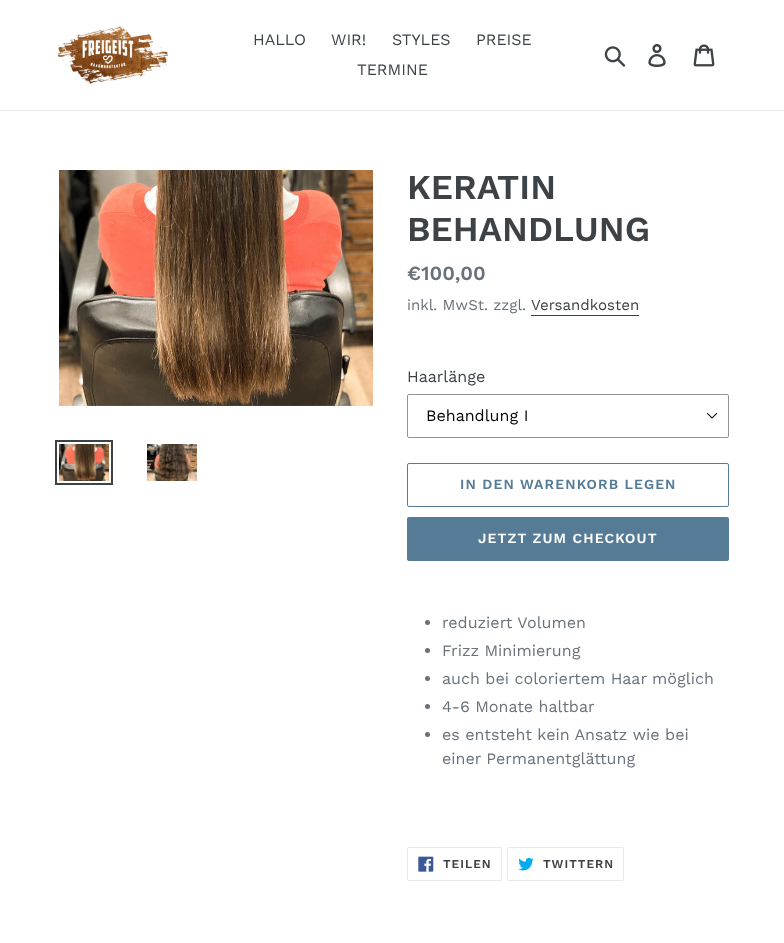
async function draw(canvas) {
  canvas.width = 784;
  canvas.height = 943;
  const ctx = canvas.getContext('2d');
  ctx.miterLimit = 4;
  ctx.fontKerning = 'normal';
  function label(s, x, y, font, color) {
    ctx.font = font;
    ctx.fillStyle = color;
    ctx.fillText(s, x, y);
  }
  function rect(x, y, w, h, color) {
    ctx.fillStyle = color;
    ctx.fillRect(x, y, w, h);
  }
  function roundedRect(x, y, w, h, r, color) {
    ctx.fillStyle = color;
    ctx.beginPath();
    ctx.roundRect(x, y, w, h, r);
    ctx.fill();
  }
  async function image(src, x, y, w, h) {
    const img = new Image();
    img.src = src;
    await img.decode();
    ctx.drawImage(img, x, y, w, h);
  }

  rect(0, 0, 784, 943, '#fff');
  rect(0, 110, 784, 1, '#e8e9eb');
  await image('assets/img1.png', 57, 26, 111, 58);
  label('HALLO', 253, 45, '16px Work Sans', '#3d4246');
  label('WIR!', 331, 45, '16px Work Sans', '#3d4246');
  label('STYLES', 392, 45, '16px Work Sans', '#3d4246');
  label('PREISE', 476, 45, '16px Work Sans', '#3d4246');
  label('TERMINE', 357, 75, '16px Work Sans', '#3d4246');
  await image('assets/img2.png', 604, 46, 22, 21);
  await image('assets/img3.png', 648, 44, 18, 23);
  await image('assets/img4.png', 693, 44, 22, 23);
  await image('assets/img5.png', 59, 170, 314, 236);
  ctx.strokeStyle = '#3d4246';
  ctx.lineWidth = 2;
  ctx.strokeRect(56, 441, 56, 43);
  await image('assets/img6.png', 59, 444, 50, 37);
  await image('assets/img7.png', 147, 444, 50, 37);
  label('KERATIN', 407, 199, '600 35px Work Sans', '#3d4246');
  label('BEHANDLUNG', 407, 241, '600 35px Work Sans', '#3d4246');
  label('€100,00', 407, 280, '600 20px Work Sans', '#69727b');
  label('inkl. MwSt. zzgl.', 407, 310, '15px Work Sans', '#69727b');
  label('Versandkosten', 531, 310, '15px Work Sans', '#3d4246');
  rect(531, 315, 108, 1, '#3d4246');
  label('Haarlänge', 407, 382, '16px Work Sans', '#3d4246');
  await image('assets/img8.png', 706, 412, 12, 7);
  ctx.beginPath();
  ctx.roundRect(407.5, 394.5, 321, 43, 1.5);
  ctx.strokeStyle = '#949494';
  ctx.lineWidth = 1;
  ctx.stroke();
  label('Behandlung I', 426, 421, '16px Work Sans', '#000');
  ctx.beginPath();
  ctx.roundRect(407.5, 463.5, 321, 43, 1.5);
  ctx.strokeStyle = '#557b97';
  ctx.stroke();
  ctx.letterSpacing = '1.1px';
  label('IN DEN WARENKORB LEGEN', 460, 489, '600 14px Work Sans', '#557b97');
  roundedRect(407, 517, 322, 44, 2, '#557b97');
  label('JETZT ZUM CHECKOUT', 478, 543, '600 14px Work Sans', '#fff');
  ctx.fillStyle = '#69727b';
  ctx.beginPath();
  ctx.arc(427.5, 622.5, 2.5, 0, 2 * Math.PI);
  ctx.fill();
  ctx.letterSpacing = '0px';
  label('reduziert Volumen', 442, 628, '16px Work Sans', '#69727b');
  ctx.beginPath();
  ctx.arc(427.5, 650.5, 2.5, 0, 2 * Math.PI);
  ctx.fill();
  label('Frizz Minimierung', 442, 656, '16px Work Sans', '#69727b');
  ctx.beginPath();
  ctx.arc(427.5, 678.5, 2.5, 0, 2 * Math.PI);
  ctx.fill();
  label('auch bei coloriertem Haar möglich', 442, 684, '16px Work Sans', '#69727b');
  ctx.beginPath();
  ctx.arc(427.5, 706.5, 2.5, 0, 2 * Math.PI);
  ctx.fill();
  label('4-6 Monate haltbar', 442, 712, '16px Work Sans', '#69727b');
  ctx.beginPath();
  ctx.arc(427.5, 734.5, 2.5, 0, 2 * Math.PI);
  ctx.fill();
  label('es entsteht kein Ansatz wie bei', 442, 740, '16px Work Sans', '#69727b');
  label('einer Permanentglättung', 442, 764, '16px Work Sans', '#69727b');
  ctx.beginPath();
  ctx.roundRect(407.5, 847.5, 94, 33, 1.5);
  ctx.strokeStyle = '#e8e9eb';
  ctx.stroke();
  await image('assets/img9.png', 418, 856, 16, 16);
  ctx.letterSpacing = '1px';
  label('TEILEN', 443, 868, '600 12px Work Sans', '#3d4246');
  ctx.beginPath();
  ctx.roundRect(507.5, 847.5, 116, 33, 1.5);
  ctx.stroke();
  await image('assets/img10.png', 518, 857, 16, 14);
  label('TWITTERN', 543, 868, '600 12px Work Sans', '#3d4246');
}

draw(document.querySelector('canvas'));
